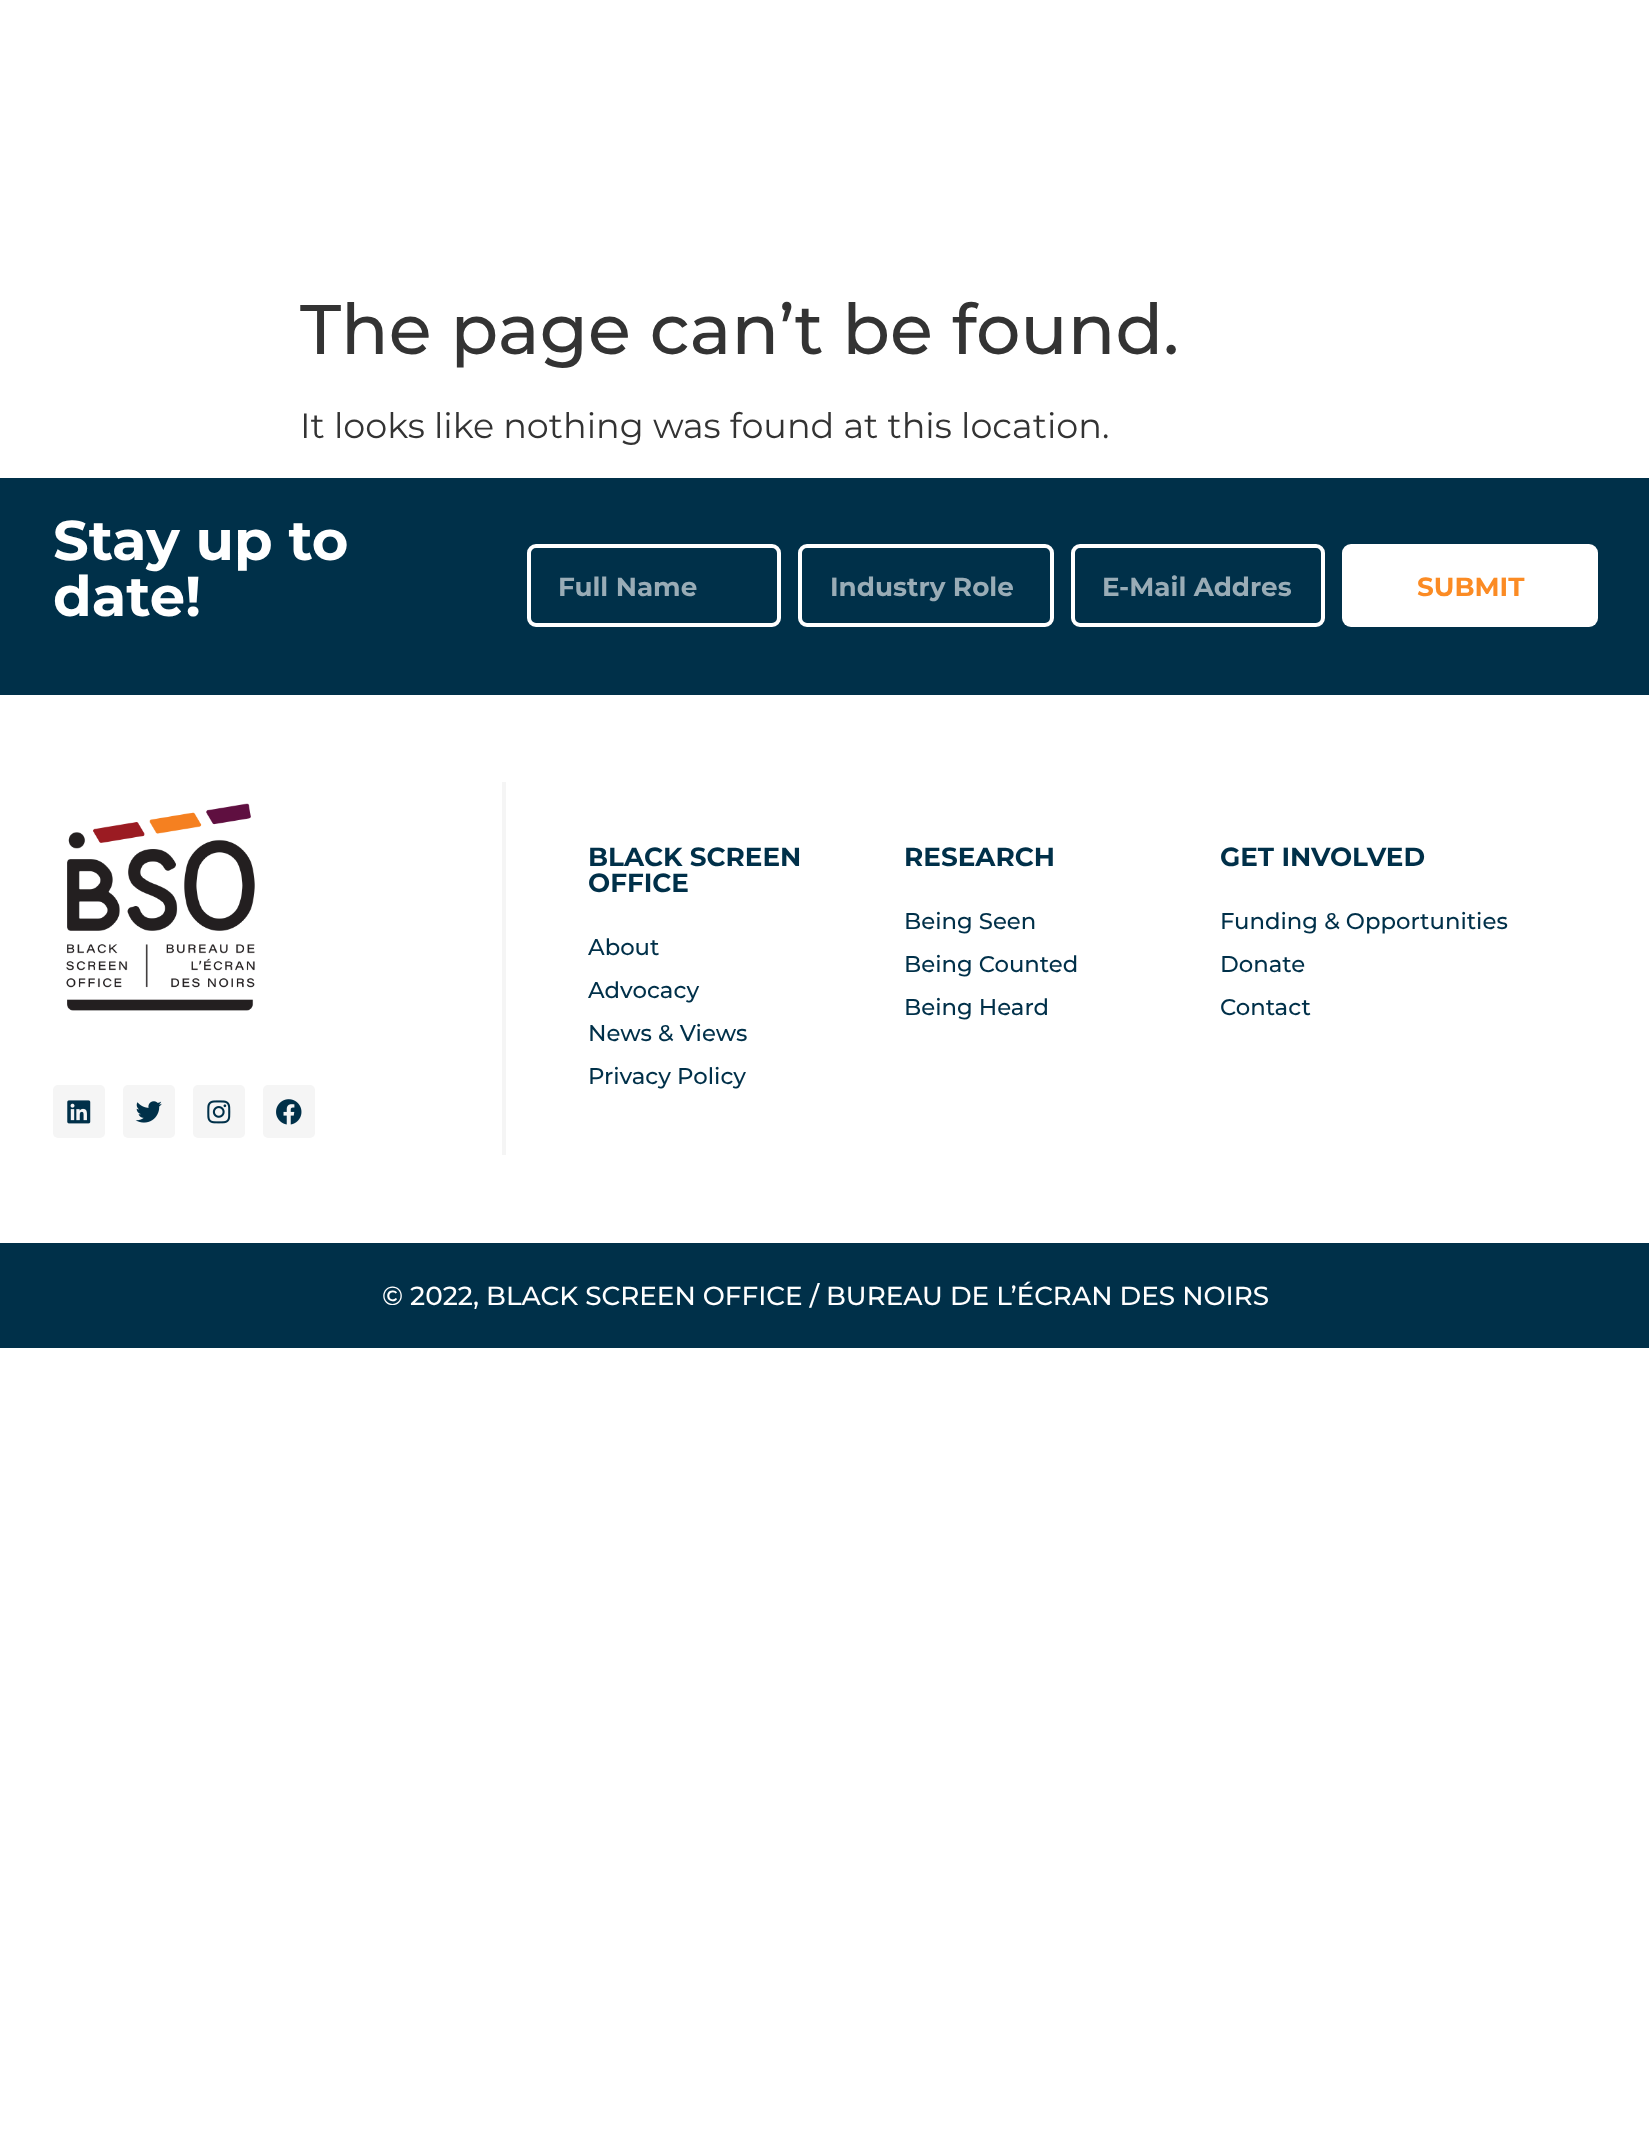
async function draw(canvas) {
  canvas.width = 1649;
  canvas.height = 2137;
  const ctx = canvas.getContext('2d');
  ctx.miterLimit = 4;
  ctx.fontKerning = 'normal';
  function label(s, x, y, font, color) {
    ctx.font = font;
    ctx.fillStyle = color;
    ctx.fillText(s, x, y);
  }
  function rect(x, y, w, h, color) {
    ctx.fillStyle = color;
    ctx.fillRect(x, y, w, h);
  }
  function roundedRect(x, y, w, h, r, color) {
    ctx.fillStyle = color;
    ctx.beginPath();
    ctx.roundRect(x, y, w, h, r);
    ctx.fill();
  }
  async function image(src, x, y, w, h) {
    const img = new Image();
    img.src = src;
    await img.decode();
    ctx.drawImage(img, x, y, w, h);
  }

  rect(0, 0, 1649, 2137, '#fff');
  label('The page can’t be found.', 300, 354, '500 70px Montserrat', '#333');
  label('It looks like nothing was found at this location.', 300, 438, '35px Montserrat', '#333');
  rect(0, 478, 1649, 217, '#003049');
  label('Stay up to', 53, 560, 'bold 56px Montserrat', '#fff');
  label('date!', 53, 616, 'bold 56px Montserrat', '#fff');
  ctx.beginPath();
  ctx.roundRect(529, 546, 250, 79, 7);
  ctx.strokeStyle = '#fff';
  ctx.lineWidth = 4;
  ctx.stroke();
  label('Full Name', 558, 596, 'bold 26.25px Montserrat', '#99acb6');
  ctx.beginPath();
  ctx.roundRect(800, 546, 252, 79, 7);
  ctx.stroke();
  label('Industry Role', 830, 596, 'bold 26.25px Montserrat', '#99acb6');
  ctx.beginPath();
  ctx.roundRect(1073, 546, 250, 79, 7);
  ctx.stroke();
  label('E-Mail Addres', 1102, 596, 'bold 26.25px Montserrat', '#99acb6');
  roundedRect(1342, 544, 256, 83, 9, '#fff');
  label('SUBMIT', 1417, 596, 'bold 26.25px Montserrat', '#fb8b24');
  rect(502, 782, 4, 373, '#f5f5f5');
  await image('assets/img1.png', 66, 803, 189, 208);
  roundedRect(53, 1085, 52, 53, 5, '#f5f5f5');
  await image('assets/img2.png', 67, 1100, 24, 24);
  roundedRect(123, 1085, 52, 53, 5, '#f5f5f5');
  await image('assets/img3.png', 135, 1101, 27, 22);
  roundedRect(193, 1085, 52, 53, 5, '#f5f5f5');
  await image('assets/img4.png', 207, 1100, 24, 24);
  roundedRect(263, 1085, 52, 53, 5, '#f5f5f5');
  await image('assets/img5.png', 276, 1099, 26, 26);
  label('BLACK SCREEN', 588, 866, 'bold 26.25px Montserrat', '#003049');
  label('OFFICE', 588, 892, 'bold 26.25px Montserrat', '#003049');
  label('About', 588, 955, '500 22.75px Montserrat', '#003049');
  label('Advocacy', 588, 998, '500 22.75px Montserrat', '#003049');
  label('News & Views', 588, 1041, '500 22.75px Montserrat', '#003049');
  label('Privacy Policy', 588, 1084, '500 22.75px Montserrat', '#003049');
  label('RESEARCH', 904, 866, 'bold 26.25px Montserrat', '#003049');
  label('Being Seen', 904, 929, '500 22.75px Montserrat', '#003049');
  label('Being Counted', 904, 972, '500 22.75px Montserrat', '#003049');
  label('Being Heard', 904, 1015, '500 22.75px Montserrat', '#003049');
  label('GET INVOLVED', 1220, 866, 'bold 26.25px Montserrat', '#003049');
  label('Funding & Opportunities', 1220, 929, '500 22.75px Montserrat', '#003049');
  label('Donate', 1220, 972, '500 22.75px Montserrat', '#003049');
  label('Contact', 1220, 1015, '500 22.75px Montserrat', '#003049');
  rect(0, 1243, 1649, 105, '#003049');
  label('© 2022, BLACK SCREEN OFFICE / BUREAU DE L’ÉCRAN DES NOIRS', 382, 1305, '500 26.25px Montserrat', '#fff');
}

draw(document.querySelector('canvas'));
